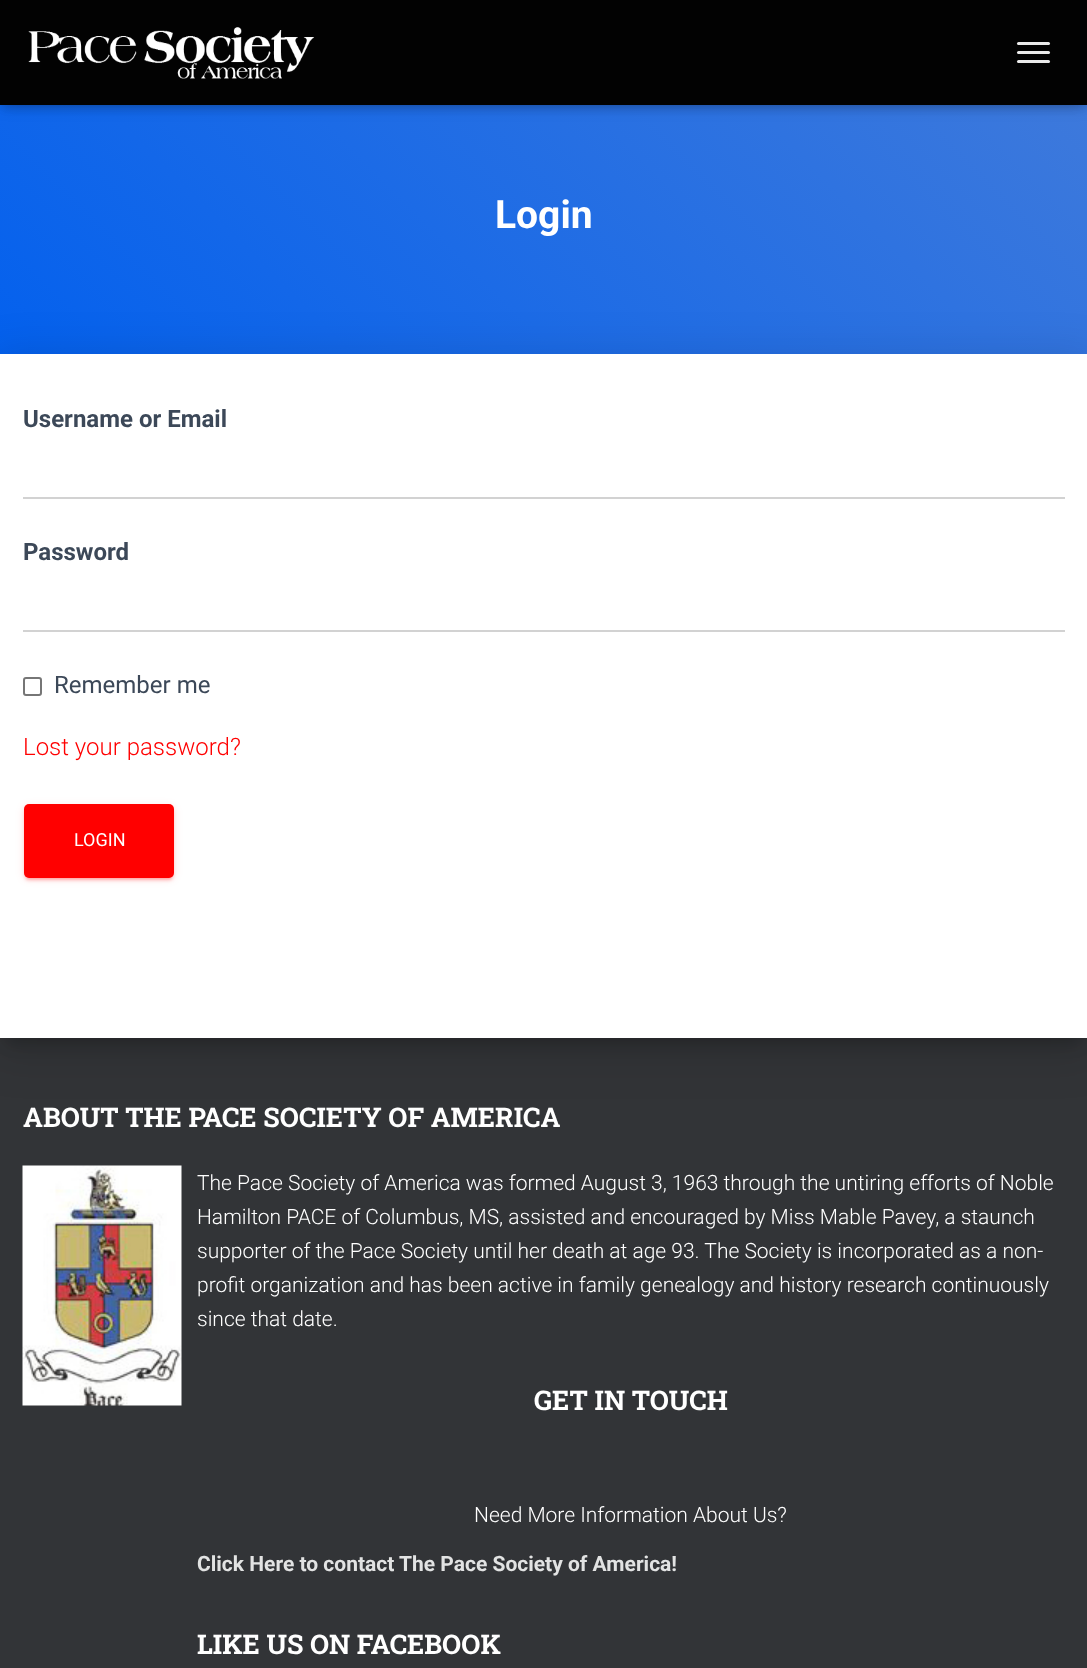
async function draw(canvas) {
  canvas.width = 1087;
  canvas.height = 1668;
  const ctx = canvas.getContext('2d');
  ctx.miterLimit = 4;
  ctx.fontKerning = 'normal';
  function label(s, x, y, font, color) {
    ctx.font = font;
    ctx.fillStyle = color;
    ctx.fillText(s, x, y);
  }
  function rect(x, y, w, h, color) {
    ctx.fillStyle = color;
    ctx.fillRect(x, y, w, h);
  }
  function roundedRect(x, y, w, h, r, color) {
    ctx.fillStyle = color;
    ctx.beginPath();
    ctx.roundRect(x, y, w, h, r);
    ctx.fill();
  }
  async function image(src, x, y, w, h) {
    const img = new Image();
    img.src = src;
    await img.decode();
    ctx.drawImage(img, x, y, w, h);
  }
  let gradient;

  rect(0, 0, 1087, 1668, '#323437');
  gradient = ctx.createLinearGradient(161, 605, 927, -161);
  gradient.addColorStop(0, '#005fef');
  gradient.addColorStop(1, '#427bda');
  ctx.fillStyle = gradient;
  ctx.fillRect(0, 105, 1087, 249);
  ctx.fillStyle = '#0000001a';
  ctx.filter = 'blur(4px)';
  ctx.beginPath();
  ctx.rect(3, 9, 1082, 99);
  ctx.fill();
  ctx.filter = 'none';
  ctx.fillStyle = '#0000001f';
  ctx.filter = 'blur(7.5px)';
  ctx.beginPath();
  ctx.rect(0, 2, 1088, 105);
  ctx.fill();
  ctx.filter = 'none';
  ctx.fillStyle = '#0000006b';
  ctx.filter = 'blur(7.5px)';
  ctx.beginPath();
  ctx.rect(9, 11, 1070, 87);
  ctx.fill();
  ctx.filter = 'none';
  rect(0, 0, 1087, 105, '#020202');
  await image('assets/img1.png', 28, 27, 287, 52);
  roundedRect(1017, 42, 33, 3, 1.5, '#eaeaea');
  roundedRect(1017, 51, 33, 3, 1.5, '#eaeaea');
  roundedRect(1017, 60, 33, 3, 1.5, '#eaeaea');
  label('Login', 495, 228, 'bold 39px Roboto', '#fff');
  ctx.fillStyle = '#00000033';
  ctx.filter = 'blur(7.5px)';
  ctx.beginPath();
  ctx.rect(8, 374, 1072, 669);
  ctx.fill();
  ctx.filter = 'none';
  ctx.fillStyle = '#0000001f';
  ctx.filter = 'blur(22.5px)';
  ctx.beginPath();
  ctx.rect(-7, 356, 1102, 699);
  ctx.fill();
  ctx.filter = 'none';
  rect(0, 354, 1087, 684, '#fff');
  label('Username or Email', 23, 427, 'bold 24px Roboto', '#3c4858');
  rect(23, 497, 1042, 2, '#d2d2d2');
  label('Password', 23, 560, 'bold 24px Roboto', '#3c4858');
  rect(23, 630, 1042, 2, '#d2d2d2');
  ctx.beginPath();
  ctx.roundRect(24, 678, 17, 17, 2);
  ctx.strokeStyle = '#767676';
  ctx.lineWidth = 2;
  ctx.stroke();
  label('Remember me', 54, 693, '24px Roboto', '#3c4858');
  label('Lost your password?', 23, 755, '300 24px Roboto', '#f00');
  ctx.fillStyle = '#ff00001f';
  ctx.filter = 'blur(4px)';
  ctx.beginPath();
  ctx.roundRect(24, 806, 150, 73, 5);
  ctx.fill();
  ctx.filter = 'none';
  ctx.fillStyle = '#ff000033';
  ctx.filter = 'blur(1px)';
  ctx.beginPath();
  ctx.roundRect(27, 812, 144, 67, 1.5);
  ctx.fill();
  ctx.filter = 'none';
  ctx.fillStyle = '#ff000024';
  ctx.filter = 'blur(1.5px)';
  ctx.beginPath();
  ctx.roundRect(24, 807, 150, 74, 5);
  ctx.fill();
  ctx.filter = 'none';
  roundedRect(24, 804, 150, 74, 5, '#f00');
  label('LOGIN', 74, 846, '18px Roboto', '#fff');
  label('ABOUT THE PACE SOCIETY OF AMERICA', 23, 1127, 'bold 27px Roboto Slab', '#fff');
  await image('assets/img2.png', 22, 1165, 160, 241);
  label('The Pace Society of America was formed August 3, 1963 through the untiring efforts of Noble', 197, 1190, '300 21px Roboto', '#fff');
  label('Hamilton PACE of Columbus, MS, assisted and encouraged by Miss Mable Pavey, a staunch', 197, 1224, '300 21px Roboto', '#fff');
  label('supporter of the Pace Society until her death at age 93. The Society is incorporated as a non-', 197, 1258, '300 21px Roboto', '#fff');
  label('profit organization and has been active in family genealogy and history research continuously', 197, 1292, '300 21px Roboto', '#fff');
  label('since that date.', 197, 1326, '300 21px Roboto', '#fff');
  label('GET IN TOUCH', 534, 1410, 'bold 27px Roboto Slab', '#fff');
  label('Need More Information About Us?', 474, 1522, '300 21px Roboto', '#fff');
  label('Click Here to contact The Pace Society of America!', 197, 1571, 'bold 21px Roboto', '#e2e3e3');
  label('LIKE US ON FACEBOOK', 197, 1654, 'bold 27px Roboto Slab', '#fff');
}

draw(document.querySelector('canvas'));
